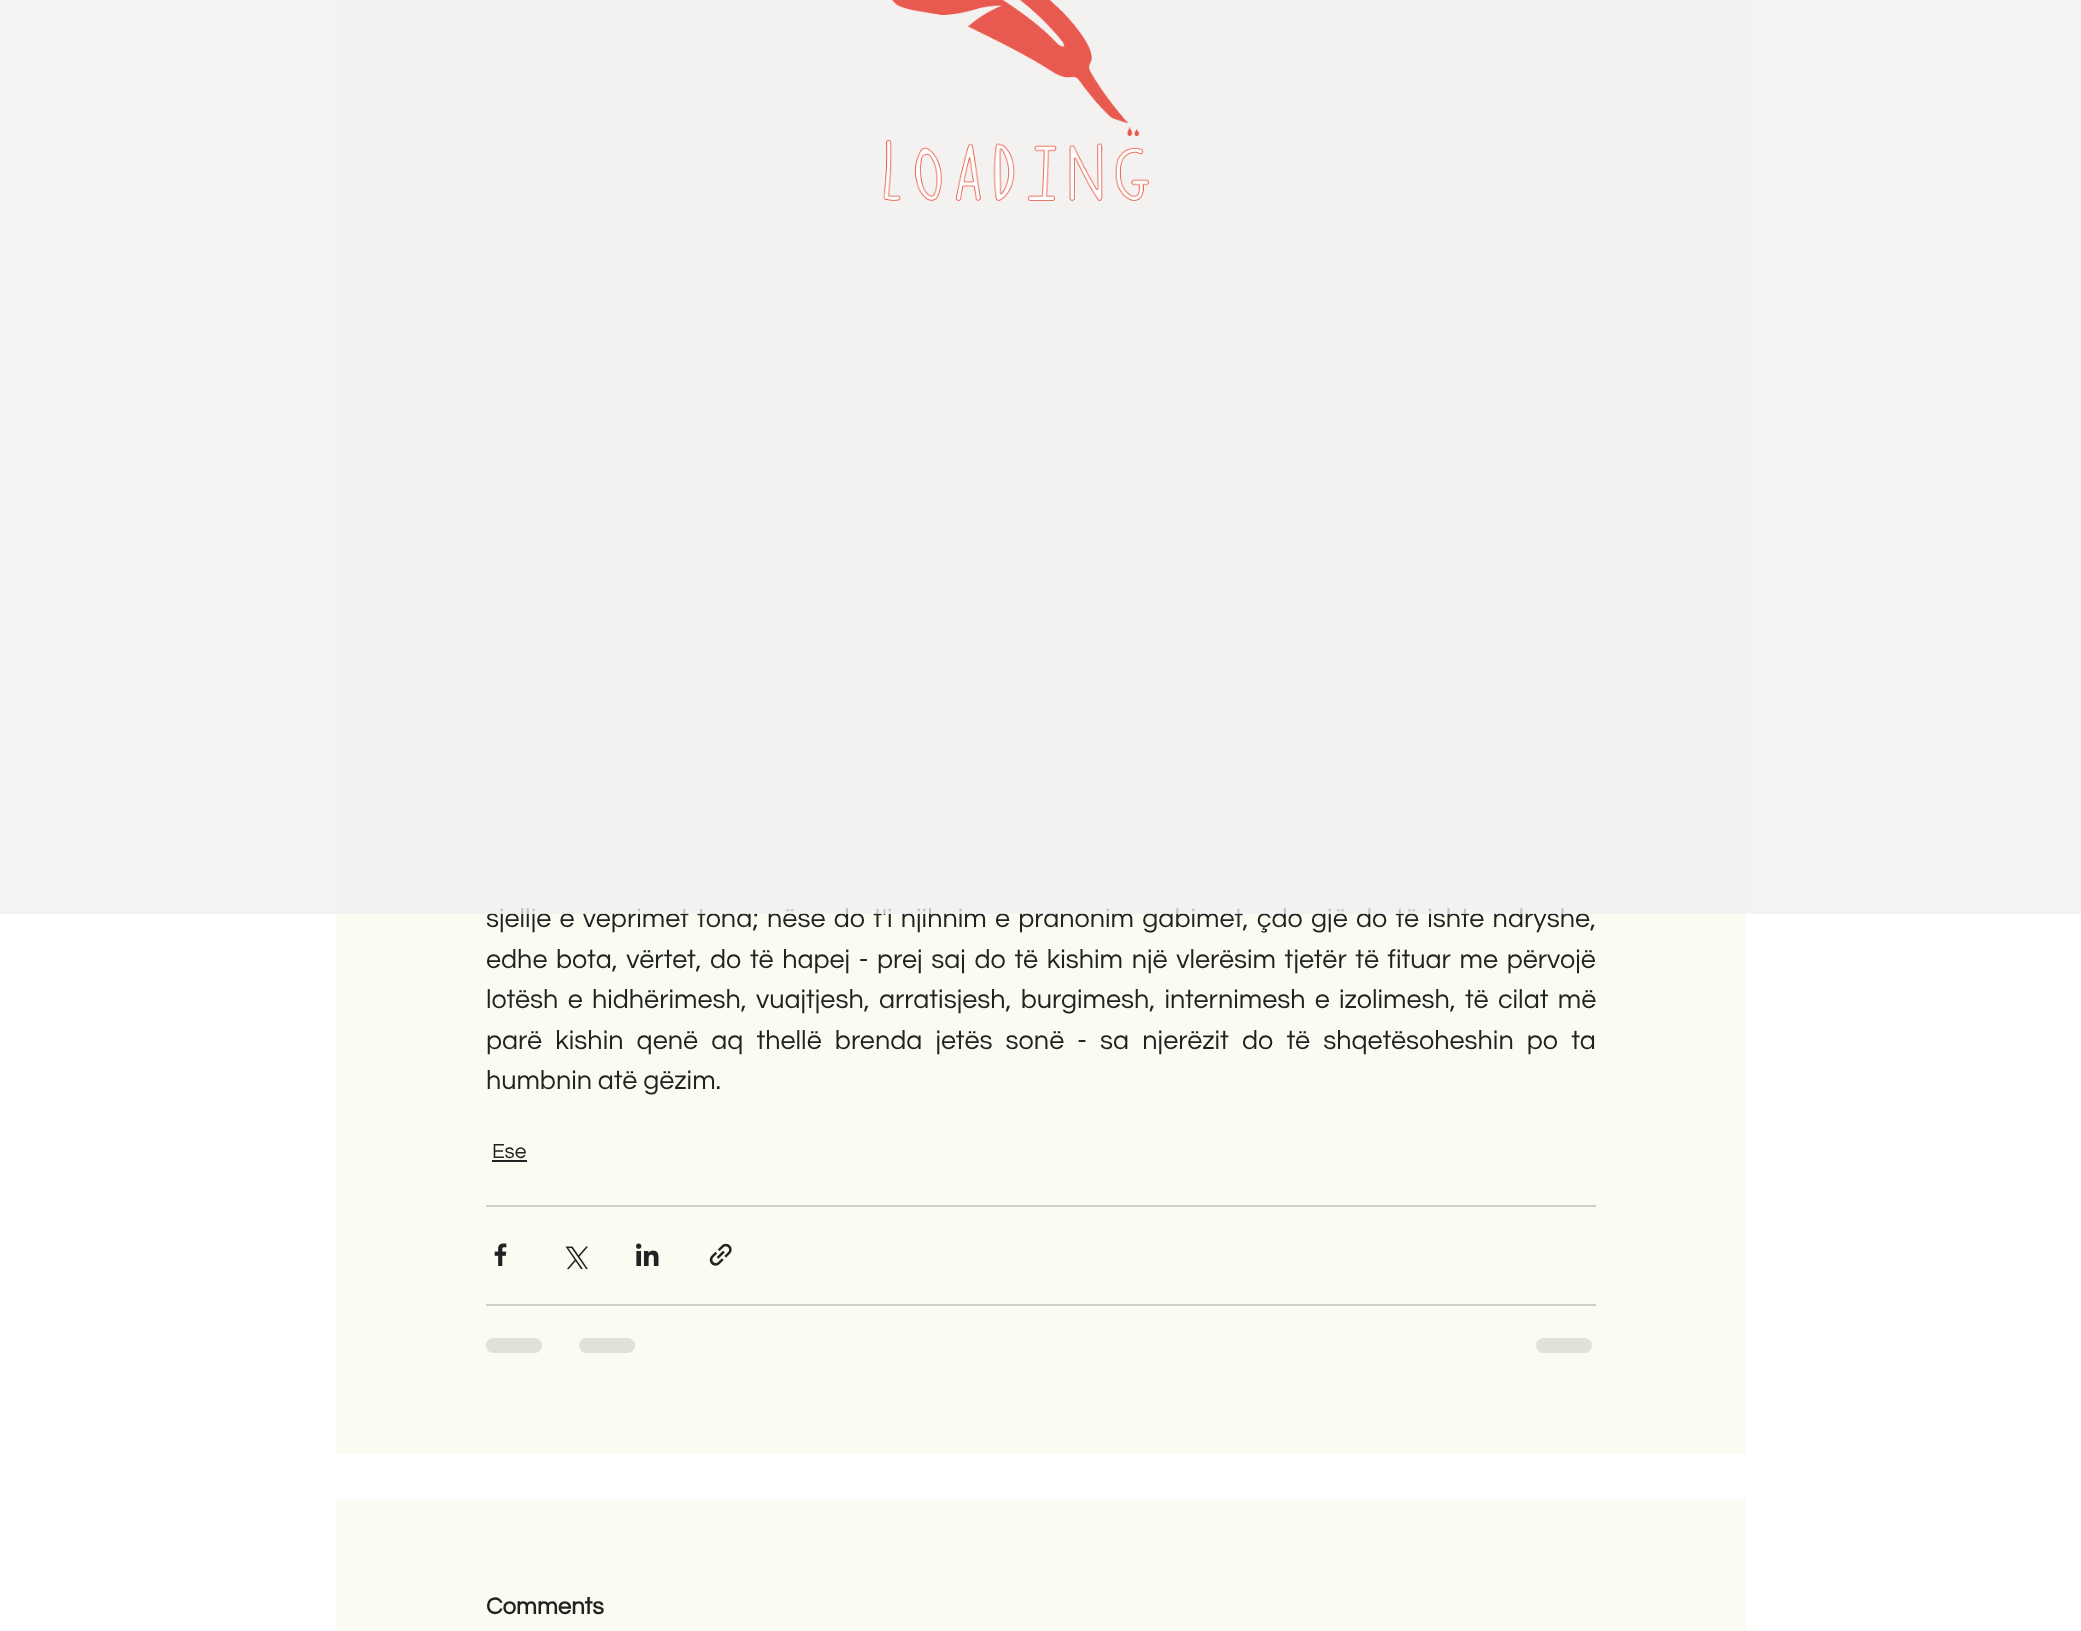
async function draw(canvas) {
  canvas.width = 2081;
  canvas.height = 1631;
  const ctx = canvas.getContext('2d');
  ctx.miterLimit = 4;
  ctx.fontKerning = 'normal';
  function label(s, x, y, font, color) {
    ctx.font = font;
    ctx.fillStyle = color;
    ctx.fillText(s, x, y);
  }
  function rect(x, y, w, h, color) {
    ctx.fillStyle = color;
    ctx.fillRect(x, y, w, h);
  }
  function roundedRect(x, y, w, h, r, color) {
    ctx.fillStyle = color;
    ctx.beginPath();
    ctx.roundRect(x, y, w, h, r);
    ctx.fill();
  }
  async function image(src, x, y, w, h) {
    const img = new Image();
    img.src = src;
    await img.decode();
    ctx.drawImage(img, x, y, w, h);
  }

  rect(0, 0, 2081, 1631, '#fff');
  rect(336, 0, 1410, 1454, '#fcfbf2');
  ctx.wordSpacing = '2.5px';
  label('sjellje e veprimet tona; nëse do t\'i njihnim e pranonim gabimet, çdo gjë do të ishte ndryshe,', 486, 927, '27px Questrial', '#222');
  rect(0, 0, 2081, 914, '#f0f0f0c7');
  await image('assets/img1.png', 883, 0, 266, 201);
  ctx.wordSpacing = '2.9px';
  label('edhe bota, vërtet, do të hapej - prej saj do të kishim një vlerësim tjetër të fituar me përvojë', 486, 968, '27px Questrial', '#222');
  ctx.wordSpacing = '3.5px';
  label('lotësh e hidhërimesh, vuajtjesh, arratisjesh, burgimesh, internimesh e izolimesh, të cilat më', 486, 1008, '27px Questrial', '#222');
  ctx.wordSpacing = '7.4px';
  label('parë kishin qenë aq thellë brenda jetës sonë - sa njerëzit do të shqetësoheshin po ta', 486, 1049, '27px Questrial', '#222');
  ctx.wordSpacing = '0px';
  label('humbnin atë gëzim.', 486, 1089, '27px Questrial', '#222');
  label('Ese', 492, 1158, '21px Questrial', '#222');
  rect(492, 1160, 35, 2, '#222');
  rect(486, 1205, 1110, 2, '#d0d0c8');
  await image('assets/img2.png', 494, 1243, 13, 23);
  await image('assets/img3.png', 565, 1246, 23, 23);
  await image('assets/img4.png', 636, 1243, 23, 23);
  await image('assets/img5.png', 709, 1243, 23, 23);
  rect(486, 1304, 1110, 2, '#d0d0c8');
  roundedRect(486, 1338, 56, 15, 7.5, '#e2e1d9');
  roundedRect(579, 1338, 56, 15, 7.5, '#e2e1d9');
  roundedRect(1536, 1338, 56, 15, 7.5, '#e2e1d9');
  rect(336, 1499, 1410, 132, '#fcfbf2');
  label('Comments', 486, 1614, 'bold 24px Questrial', '#222');
}

draw(document.querySelector('canvas'));
